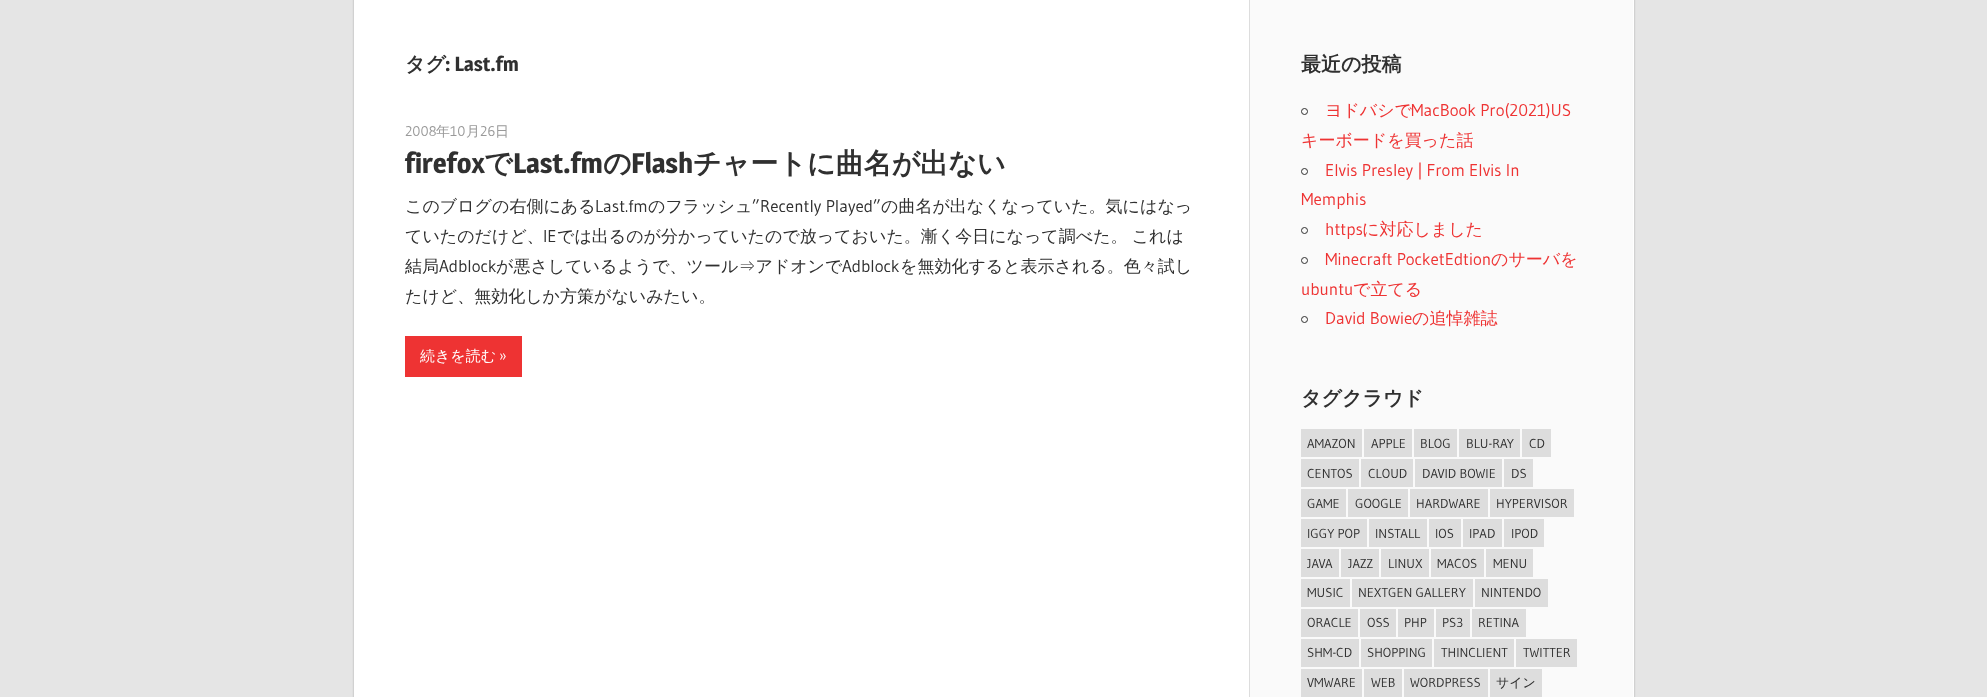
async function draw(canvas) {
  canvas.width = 1987;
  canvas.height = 697;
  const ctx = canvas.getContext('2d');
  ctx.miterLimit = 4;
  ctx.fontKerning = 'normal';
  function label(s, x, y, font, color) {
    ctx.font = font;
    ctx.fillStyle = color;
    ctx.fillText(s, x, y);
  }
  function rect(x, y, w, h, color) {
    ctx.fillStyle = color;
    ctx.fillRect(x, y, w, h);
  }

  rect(0, 0, 1987, 697, '#e5e5e5');
  ctx.fillStyle = '#aaa';
  ctx.filter = 'blur(1px)';
  ctx.beginPath();
  ctx.rect(354, -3, 1280, 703);
  ctx.fill();
  ctx.filter = 'none';
  rect(354, 0, 1280, 697, '#fff');
  label('タグ', 405, 71, 'bold 20px WenQuanYi Zen Hei', '#303030');
  label(': Last.fm', 445, 71, 'bold 20px Magra', '#303030');
  label('2008', 405, 136, '14px Gudea', '#999');
  label('年', 436, 136, '500 14px WenQuanYi Zen Hei', '#999');
  label('10', 450, 136, '14px Gudea', '#999');
  label('月', 466, 136, '500 14px WenQuanYi Zen Hei', '#999');
  label('26', 480, 136, '14px Gudea', '#999');
  label('日', 495, 136, '500 14px WenQuanYi Zen Hei', '#999');
  label('firefox', 405, 173, 'bold 28px Magra', '#303030');
  label('で', 484, 173, 'bold 28px WenQuanYi Zen Hei', '#303030');
  label('Last.fm', 513, 173, 'bold 28px Magra', '#303030');
  label('の', 603, 173, 'bold 28px WenQuanYi Zen Hei', '#303030');
  label('Flash', 631, 173, 'bold 28px Magra', '#303030');
  label('チャートに曲名が出ない', 693, 173, 'bold 28px WenQuanYi Zen Hei', '#303030');
  label('このブログの右側にある', 405, 212, '500 17px WenQuanYi Zen Hei', '#303030');
  label('Last.fm', 595, 212, '17px Gudea', '#303030');
  label('のフラッシュ', 648, 212, '500 17px WenQuanYi Zen Hei', '#303030');
  label('”Recently Played”', 752, 212, '17px Gudea', '#303030');
  label('の曲名が出なくなっていた。気にはなっ', 881, 212, '500 17px WenQuanYi Zen Hei', '#303030');
  label('ていたのだけど、', 405, 242, '500 17px WenQuanYi Zen Hei', '#303030');
  label('IE', 543, 242, '17px Gudea', '#303030');
  ctx.wordSpacing = '-1px';
  label('では出るのが分かっていたので放っておいた。漸く今日になって調べた。 これは', 557, 242, '500 17px WenQuanYi Zen Hei', '#303030');
  ctx.wordSpacing = '0px';
  label('結局', 405, 272, '500 17px WenQuanYi Zen Hei', '#303030');
  label('Adblock', 439, 272, '17px Gudea', '#303030');
  label('が悪さしているようで、ツール⇒アドオンで', 496, 272, '500 17px WenQuanYi Zen Hei', '#303030');
  label('Adblock', 842, 272, '17px Gudea', '#303030');
  label('を無効化すると表示される。色々試し', 900, 272, '500 17px WenQuanYi Zen Hei', '#303030');
  label('たけど、無効化しか方策がないみたい。', 405, 302, '500 17px WenQuanYi Zen Hei', '#303030');
  rect(405, 336, 117, 41, '#e33');
  label('続きを読む', 420, 361, '500 15px WenQuanYi Zen Hei', '#fff');
  label('»', 499, 361, '15px Gudea', '#fff');
  rect(1250, 0, 383, 697, '#fafafa');
  rect(1249, 0, 1, 697, '#ddd');
  label('最近の投稿', 1301, 71, 'bold 20px WenQuanYi Zen Hei', '#303030');
  ctx.beginPath();
  ctx.arc(1304.5, 111.5, 3, 0, 2 * Math.PI);
  ctx.strokeStyle = '#303030';
  ctx.stroke();
  label('ヨドバシで', 1325, 116, '500 17px WenQuanYi Zen Hei', '#e33');
  label('MacBook Pro(2021)US', 1411, 116, '17px Gudea', '#e33');
  label('キーボードを買った話', 1301, 146, '500 17px WenQuanYi Zen Hei', '#e33');
  ctx.beginPath();
  ctx.arc(1304.5, 171.5, 3, 0, 2 * Math.PI);
  ctx.stroke();
  label('Elvis Presley | From Elvis In', 1325, 176, '17px Gudea', '#e33');
  label('Memphis', 1301, 205, '17px Gudea', '#e33');
  ctx.beginPath();
  ctx.arc(1304.5, 230.5, 3, 0, 2 * Math.PI);
  ctx.stroke();
  label('https', 1325, 235, '17px Gudea', '#e33');
  label('に対応しました', 1362, 235, '500 17px WenQuanYi Zen Hei', '#e33');
  ctx.beginPath();
  ctx.arc(1304.5, 260.5, 3, 0, 2 * Math.PI);
  ctx.stroke();
  label('Minecraft PocketEdtion', 1325, 265, '17px Gudea', '#e33');
  label('のサーバを', 1491, 265, '500 17px WenQuanYi Zen Hei', '#e33');
  label('ubuntu', 1301, 295, '17px Gudea', '#e33');
  label('で立てる', 1353, 295, '500 17px WenQuanYi Zen Hei', '#e33');
  ctx.beginPath();
  ctx.arc(1304.5, 319.5, 3, 0, 2 * Math.PI);
  ctx.stroke();
  label('David Bowie', 1325, 324, '17px Gudea', '#e33');
  label('の追悼雑誌', 1412, 324, '500 17px WenQuanYi Zen Hei', '#e33');
  label('タグクラウド', 1301, 405, 'bold 20px WenQuanYi Zen Hei', '#303030');
  rect(1301, 429, 61, 28, '#ddd');
  label('AMAZON', 1307, 448, '13px Gudea', '#303030');
  rect(1364, 429, 48, 28, '#ddd');
  label('APPLE', 1371, 448, '13px Gudea', '#303030');
  rect(1414, 429, 43, 28, '#ddd');
  label('BLOG', 1420, 448, '13px Gudea', '#303030');
  rect(1459, 429, 61, 28, '#ddd');
  label('BLU-RAY', 1466, 448, '13px Gudea', '#303030');
  rect(1522, 429, 29, 28, '#ddd');
  label('CD', 1529, 448, '13px Gudea', '#303030');
  rect(1301, 459, 58, 28, '#ddd');
  label('CENTOS', 1307, 478, '13px Gudea', '#303030');
  rect(1361, 459, 52, 28, '#ddd');
  label('CLOUD', 1368, 478, '13px Gudea', '#303030');
  rect(1415, 459, 87, 28, '#ddd');
  label('DAVID BOWIE', 1422, 478, '13px Gudea', '#303030');
  rect(1504, 459, 29, 28, '#ddd');
  label('DS', 1511, 478, '13px Gudea', '#303030');
  rect(1301, 489, 45, 28, '#ddd');
  label('GAME', 1307, 508, '13px Gudea', '#303030');
  rect(1348, 489, 60, 28, '#ddd');
  label('GOOGLE', 1355, 508, '13px Gudea', '#303030');
  rect(1410, 489, 78, 28, '#ddd');
  label('HARDWARE', 1416, 508, '13px Gudea', '#303030');
  rect(1490, 489, 84, 28, '#ddd');
  label('HYPERVISOR', 1496, 508, '13px Gudea', '#303030');
  rect(1301, 519, 66, 28, '#ddd');
  label('IGGY POP', 1307, 538, '13px Gudea', '#303030');
  rect(1369, 519, 58, 28, '#ddd');
  label('INSTALL', 1375, 538, '13px Gudea', '#303030');
  rect(1429, 519, 32, 28, '#ddd');
  label('IOS', 1435, 538, '13px Gudea', '#303030');
  rect(1463, 519, 39, 28, '#ddd');
  label('IPAD', 1469, 538, '13px Gudea', '#303030');
  rect(1504, 519, 40, 28, '#ddd');
  label('IPOD', 1511, 538, '13px Gudea', '#303030');
  rect(1301, 549, 38, 28, '#ddd');
  label('JAVA', 1307, 568, '13px Gudea', '#303030');
  rect(1341, 549, 38, 28, '#ddd');
  label('JAZZ', 1348, 568, '13px Gudea', '#303030');
  rect(1381, 549, 48, 28, '#ddd');
  label('LINUX', 1388, 568, '13px Gudea', '#303030');
  rect(1431, 549, 53, 28, '#ddd');
  label('MACOS', 1437, 568, '13px Gudea', '#303030');
  rect(1486, 549, 47, 28, '#ddd');
  label('MENU', 1493, 568, '13px Gudea', '#303030');
  rect(1301, 579, 49, 28, '#ddd');
  label('MUSIC', 1307, 597, '13px Gudea', '#303030');
  rect(1352, 579, 121, 28, '#ddd');
  label('NEXTGEN GALLERY', 1358, 597, '13px Gudea', '#303030');
  rect(1475, 579, 73, 28, '#ddd');
  label('NINTENDO', 1481, 597, '13px Gudea', '#303030');
  rect(1301, 609, 57, 28, '#ddd');
  label('ORACLE', 1307, 627, '13px Gudea', '#303030');
  rect(1360, 609, 36, 28, '#ddd');
  label('OSS', 1367, 627, '13px Gudea', '#303030');
  rect(1398, 609, 36, 28, '#ddd');
  label('PHP', 1404, 627, '13px Gudea', '#303030');
  rect(1436, 609, 34, 28, '#ddd');
  label('PS3', 1442, 627, '13px Gudea', '#303030');
  rect(1472, 609, 54, 28, '#ddd');
  label('RETINA', 1478, 627, '13px Gudea', '#303030');
  rect(1301, 639, 58, 28, '#ddd');
  label('SHM-CD', 1307, 657, '13px Gudea', '#303030');
  rect(1361, 639, 71, 28, '#ddd');
  label('SHOPPING', 1367, 657, '13px Gudea', '#303030');
  rect(1434, 639, 80, 28, '#ddd');
  label('THINCLIENT', 1441, 657, '13px Gudea', '#303030');
  rect(1516, 639, 61, 28, '#ddd');
  label('TWITTER', 1523, 657, '13px Gudea', '#303030');
  rect(1301, 669, 61, 28, '#ddd');
  label('VMWARE', 1307, 687, '13px Gudea', '#303030');
  rect(1364, 669, 38, 28, '#ddd');
  label('WEB', 1371, 687, '13px Gudea', '#303030');
  rect(1404, 669, 84, 28, '#ddd');
  label('WORDPRESS', 1410, 687, '13px Gudea', '#303030');
  rect(1490, 669, 52, 28, '#ddd');
  label('サイン', 1496, 687, '500 13px WenQuanYi Zen Hei', '#303030');
}

draw(document.querySelector('canvas'));
